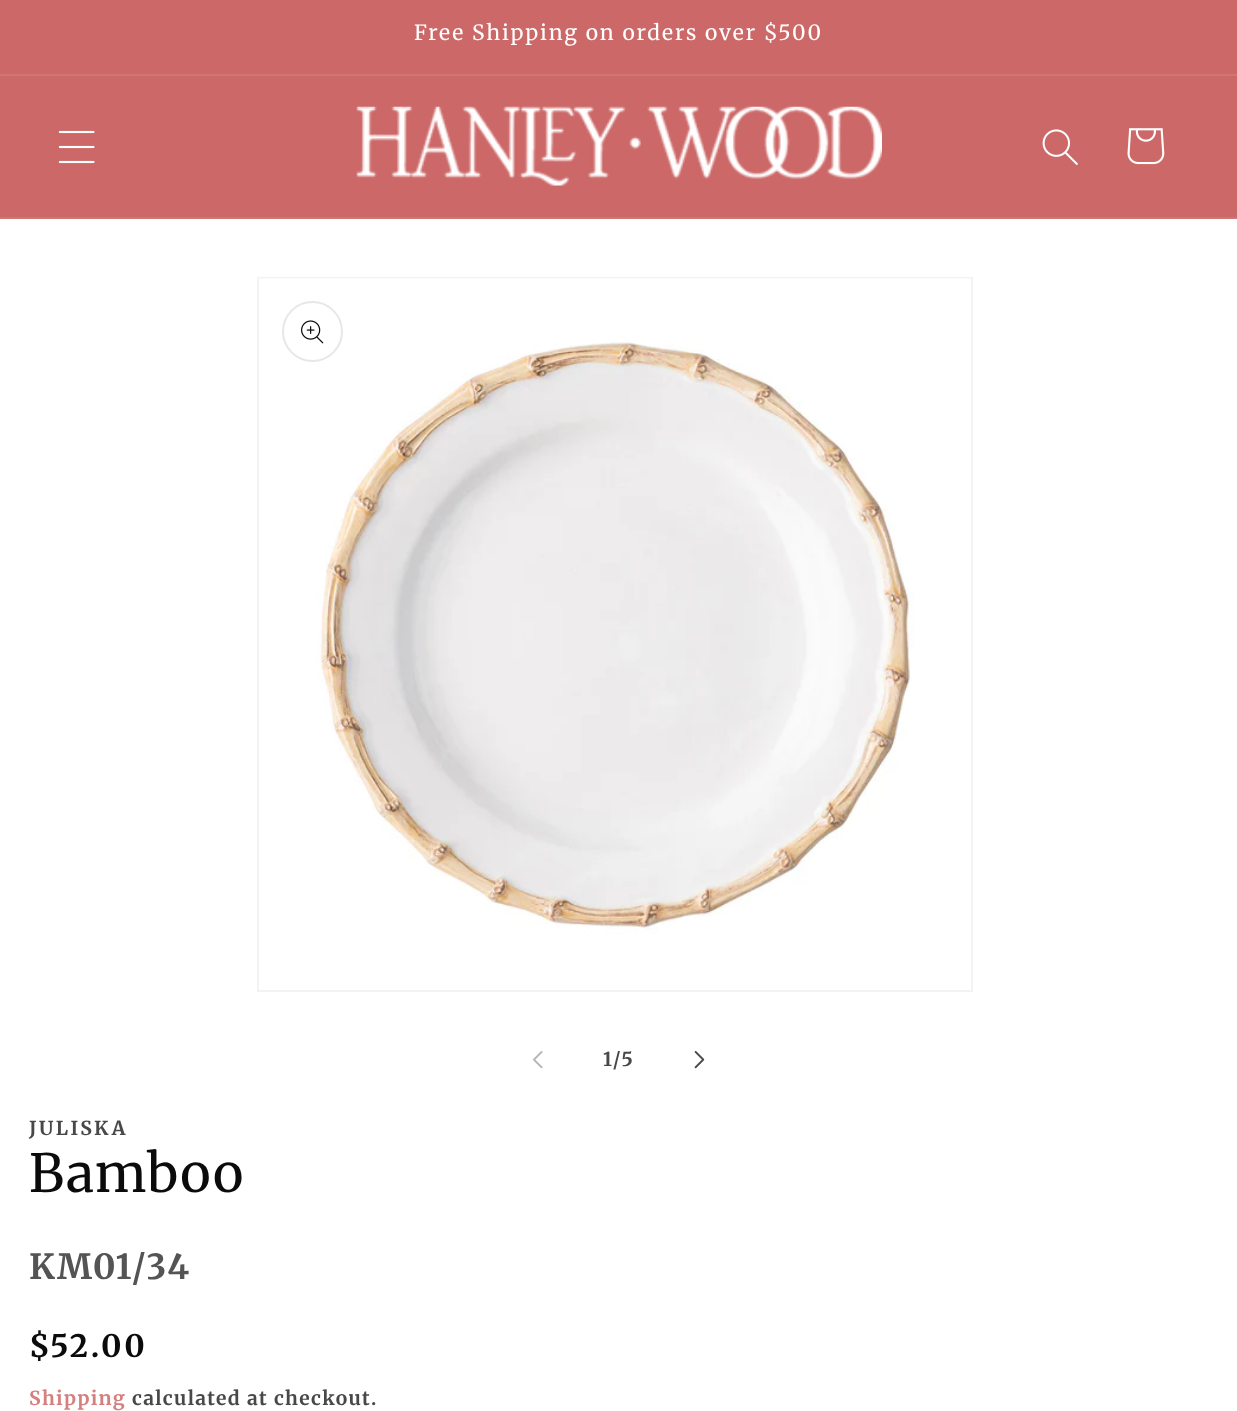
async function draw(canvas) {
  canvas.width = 1237;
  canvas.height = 1411;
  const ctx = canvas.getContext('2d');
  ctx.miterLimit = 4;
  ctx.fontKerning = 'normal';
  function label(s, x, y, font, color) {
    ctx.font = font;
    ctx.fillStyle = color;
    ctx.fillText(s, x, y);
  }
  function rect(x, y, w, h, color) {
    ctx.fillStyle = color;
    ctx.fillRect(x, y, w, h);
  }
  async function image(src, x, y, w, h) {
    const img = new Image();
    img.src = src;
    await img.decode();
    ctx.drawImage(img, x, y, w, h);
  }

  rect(0, 0, 1237, 1411, '#fff');
  rect(0, 0, 1237, 74, '#cd6868');
  rect(0, 74, 1237, 2, '#d17474');
  ctx.letterSpacing = '1.9px';
  label('Free Shipping on orders over $500', 414, 40, '21px "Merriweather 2"', '#fff');
  rect(0, 76, 1237, 141, '#cd6868');
  rect(0, 217, 1237, 2, '#d17474');
  await image('assets/img1.png', 58, 130, 37, 34);
  await image('assets/img2.png', 356, 106, 526, 80);
  await image('assets/img3.png', 1042, 129, 36, 36);
  await image('assets/img4.png', 1127, 128, 38, 37);
  ctx.strokeStyle = '#f3f3f3';
  ctx.lineWidth = 2;
  ctx.strokeRect(258, 278, 714, 713);
  await image('assets/img5.png', 259, 278, 712, 656);
  ctx.beginPath();
  ctx.arc(312.5, 331.5, 29.5, 0, 2 * Math.PI);
  ctx.strokeStyle = '#e7e7e7';
  ctx.stroke();
  await image('assets/img6.png', 301, 320, 23, 24);
  await image('assets/img7.png', 533, 1051, 10, 18);
  ctx.letterSpacing = '1.35px';
  label('1/5', 603, 1066, 'bold 19.25px Merriweather', '#484848');
  await image('assets/img8.png', 694, 1051, 11, 18);
  ctx.letterSpacing = '2.5px';
  label('JULISKA', 29, 1135, 'bold 19.25px Merriweather', '#484848');
  ctx.letterSpacing = '1px';
  label('Bamboo', 29, 1192, '52.5px Merriweather', '#0b0b0b');
  ctx.letterSpacing = '1.25px';
  label('KM01/34', 29, 1279, 'bold 34.5px Merriweather', '#545454');
  ctx.letterSpacing = '2.5px';
  label('$52.00', 29, 1357, 'bold 31px Merriweather', '#0b0b0b');
  ctx.letterSpacing = '1.35px';
  label('Shipping', 29, 1405, 'bold 19.25px Merriweather', '#d57f7f');
  label('calculated at checkout.', 132, 1405, 'bold 19.25px Merriweather', '#484848');
}

draw(document.querySelector('canvas'));
